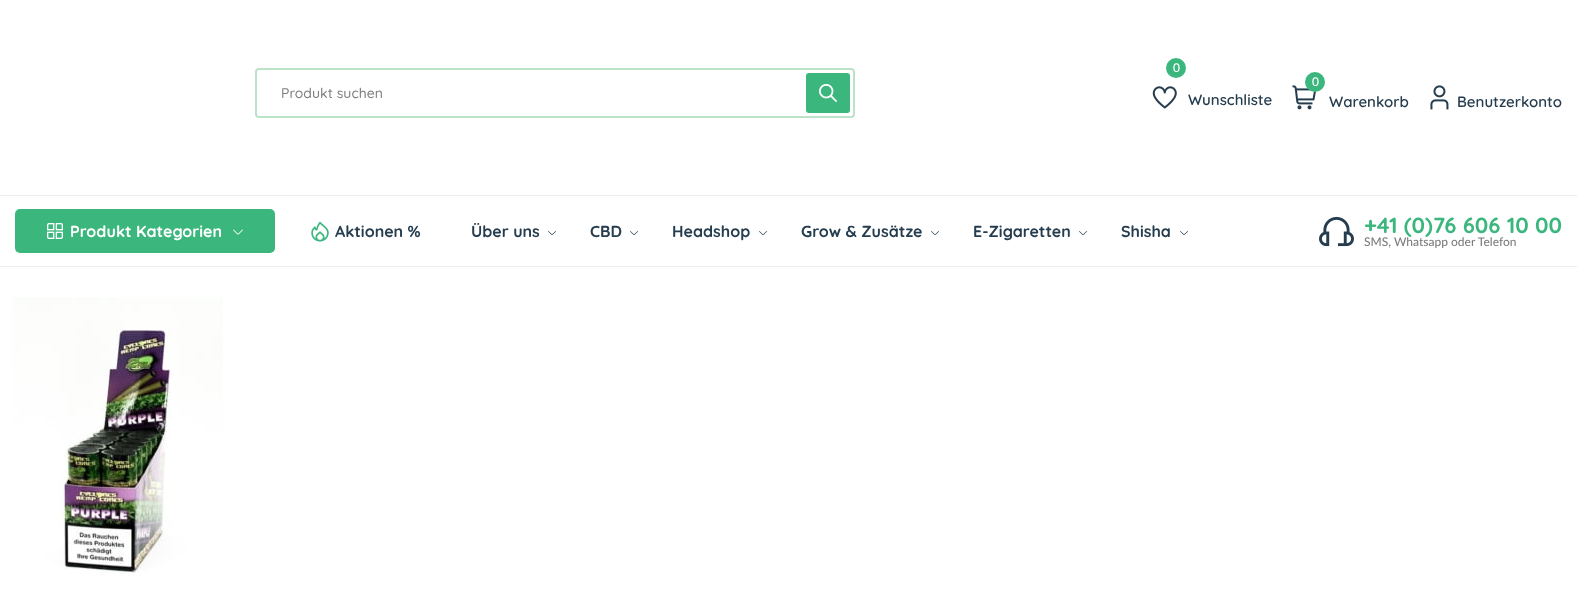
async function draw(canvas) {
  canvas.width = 1577;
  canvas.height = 605;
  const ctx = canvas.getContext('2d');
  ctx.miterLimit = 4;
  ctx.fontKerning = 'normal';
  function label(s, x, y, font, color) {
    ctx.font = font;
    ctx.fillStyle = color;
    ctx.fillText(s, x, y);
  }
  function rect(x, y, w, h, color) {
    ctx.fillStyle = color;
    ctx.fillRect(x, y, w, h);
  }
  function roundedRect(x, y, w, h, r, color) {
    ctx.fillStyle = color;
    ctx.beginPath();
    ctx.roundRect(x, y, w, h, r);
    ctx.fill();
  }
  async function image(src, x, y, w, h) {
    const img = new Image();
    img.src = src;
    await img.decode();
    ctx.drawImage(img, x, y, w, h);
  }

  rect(0, 0, 1577, 605, '#fff');
  ctx.beginPath();
  ctx.roundRect(256, 69, 598, 48, 3);
  ctx.strokeStyle = '#bce3c9';
  ctx.lineWidth = 2;
  ctx.stroke();
  label('Produkt suchen', 281, 98, '500 14px Quicksand', '#7e7e7e');
  roundedRect(806, 73, 44, 40, 3, '#3bb77e');
  await image('assets/img1.png', 819, 84, 18, 18);
  ctx.beginPath();
  ctx.arc(1176, 68, 10, 0, 2 * Math.PI);
  ctx.fill();
  label('0', 1173, 72, '500 12px Lato', '#fff');
  await image('assets/img2.png', 1152, 86, 25, 23);
  label('Wunschliste', 1188, 105, '600 15px Quicksand', '#253d4e');
  await image('assets/img3.png', 1292, 85, 24, 25);
  ctx.fillStyle = '#3bb77e';
  ctx.beginPath();
  ctx.arc(1315, 82, 10, 0, 2 * Math.PI);
  ctx.fill();
  label('0', 1312, 86, '500 12px Lato', '#fff');
  label('Warenkorb', 1329, 107, '600 15px Quicksand', '#253d4e');
  await image('assets/img4.png', 1430, 85, 19, 25);
  label('Benutzerkonto', 1457, 107, '600 15px Quicksand', '#253d4e');
  rect(0, 195, 1577, 1, '#ececec');
  rect(0, 266, 1577, 1, '#ececec');
  roundedRect(15, 209, 260, 44, 5, '#3bb77e');
  await image('assets/img5.png', 47, 223, 16, 16);
  label('Produkt Kategorien', 70, 237, 'bold 16px Quicksand', '#fff');
  await image('assets/img6.png', 233, 229, 10, 6);
  await image('assets/img7.png', 311, 221, 18, 21);
  label('Aktionen %', 335, 237, 'bold 16px Quicksand', '#253d4e');
  label('Über uns', 471, 237, 'bold 16px Quicksand', '#253d4e');
  await image('assets/img8.png', 548, 231, 8, 4);
  label('CBD', 590, 237, 'bold 16px Quicksand', '#253d4e');
  await image('assets/img8.png', 630, 231, 8, 4);
  label('Headshop', 672, 237, 'bold 16px Quicksand', '#253d4e');
  await image('assets/img8.png', 759, 231, 8, 4);
  label('Grow & Zusätze', 801, 237, 'bold 16px Quicksand', '#253d4e');
  await image('assets/img8.png', 931, 231, 8, 4);
  label('E-Zigaretten', 973, 237, 'bold 16px Quicksand', '#253d4e');
  await image('assets/img8.png', 1079, 231, 8, 4);
  label('Shisha', 1121, 237, 'bold 16px Quicksand', '#253d4e');
  await image('assets/img8.png', 1180, 231, 8, 4);
  await image('assets/img9.png', 1319, 216, 35, 31);
  label('+41 (0)76 606 10 00', 1364, 233, 'bold 22px Quicksand', '#3bb77e');
  label('SMS, Whatsapp oder Telefon', 1364, 246, '500 12px Lato', '#7e7e7e');
  await image('assets/img10.png', 12, 297, 211, 279);
}

draw(document.querySelector('canvas'));
